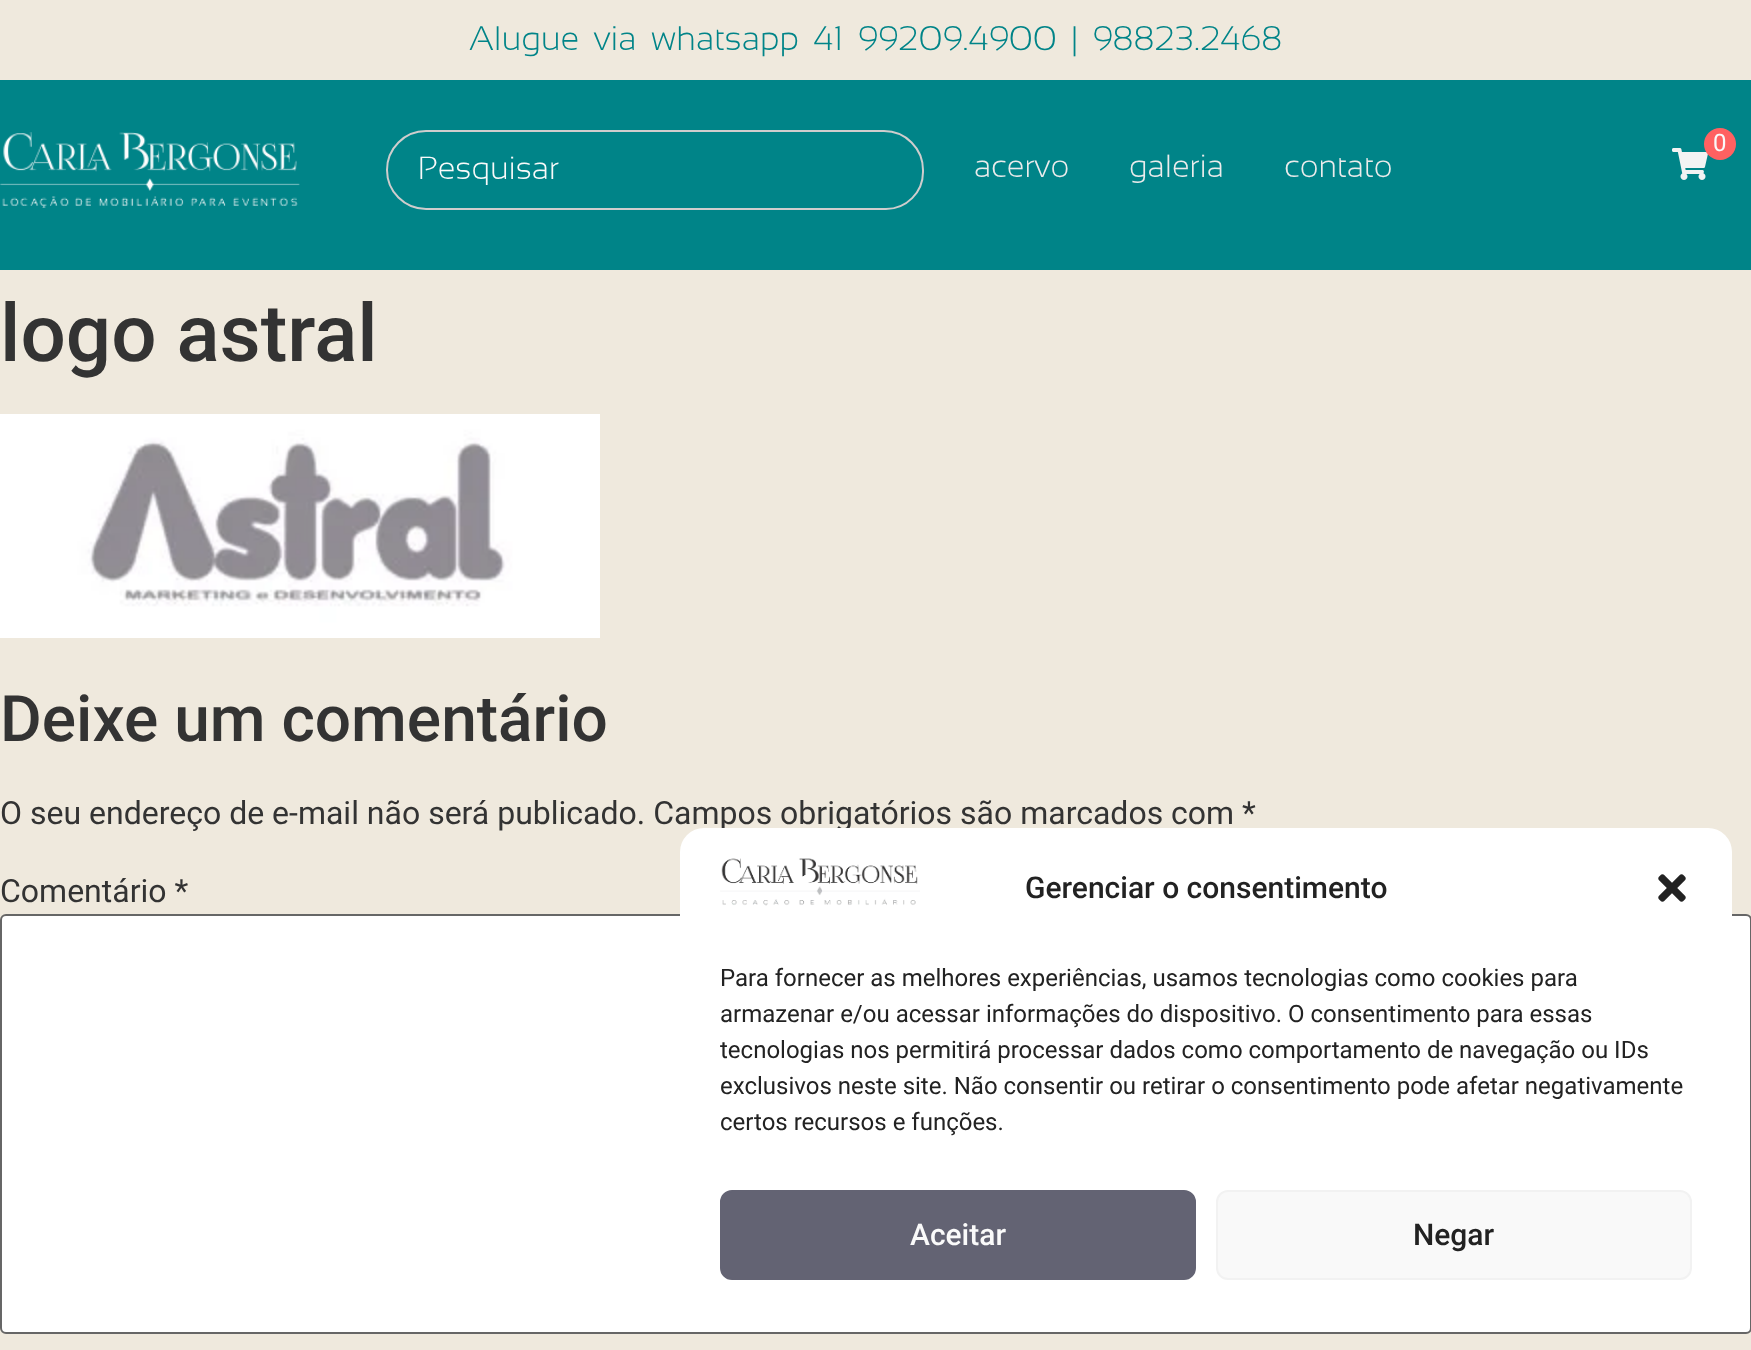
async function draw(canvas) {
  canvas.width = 1751;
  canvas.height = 1350;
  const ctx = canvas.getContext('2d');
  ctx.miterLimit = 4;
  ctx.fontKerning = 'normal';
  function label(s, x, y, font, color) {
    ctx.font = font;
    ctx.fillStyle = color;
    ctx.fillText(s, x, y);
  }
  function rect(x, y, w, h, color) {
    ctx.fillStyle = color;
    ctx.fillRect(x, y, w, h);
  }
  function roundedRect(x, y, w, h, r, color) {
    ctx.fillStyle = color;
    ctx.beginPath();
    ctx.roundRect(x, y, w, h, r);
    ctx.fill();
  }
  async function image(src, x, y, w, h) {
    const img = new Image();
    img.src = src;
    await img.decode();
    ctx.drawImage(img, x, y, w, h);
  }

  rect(0, 0, 1751, 1350, '#efe9dd');
  ctx.wordSpacing = '6px';
  label('Alugue via whatsapp 41 99209.4900 | 98823.2468', 469, 50, '300 34px Sansation Light', '#008488');
  rect(0, 80, 1751, 190, '#008488');
  await image('assets/img1.png', 0, 132, 300, 76);
  await image('assets/img2.png', 1672, 148, 36, 32);
  ctx.fillStyle = '#ff6161';
  ctx.beginPath();
  ctx.arc(1720, 144, 16, 0, 2 * Math.PI);
  ctx.fill();
  ctx.wordSpacing = '0px';
  label('0', 1713, 151, '24px Roboto', '#fafafa');
  ctx.beginPath();
  ctx.roundRect(387, 131, 536, 78, [39, 39, 37, 39]);
  ctx.strokeStyle = '#cfcdcd';
  ctx.lineWidth = 2;
  ctx.stroke();
  label('Pesquisar', 418, 179, '300 32px Sansation Light', '#fafafa');
  label('acervo', 974, 177, '300 32px Sansation Light', '#ececec');
  label('galeria', 1129, 177, '300 32px Sansation Light', '#ececec');
  label('contato', 1284, 177, '300 32px Sansation Light', '#ececec');
  label('logo astral', 0, 361, '500 80px Roboto', '#333');
  await image('assets/img3.png', 0, 414, 600, 224);
  label('Deixe um comentário', 0, 741, '500 64px Roboto', '#333');
  label('O seu endereço de e-mail não será publicado. Campos obrigatórios são marcados com *', 0, 824, '32px Roboto', '#333');
  label('Comentário *', 0, 902, '32px Roboto', '#333');
  ctx.fillStyle = '#fff';
  ctx.beginPath();
  ctx.roundRect(1, 915, 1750, 418, 5);
  ctx.fill();
  ctx.strokeStyle = '#666';
  ctx.stroke();
  roundedRect(680, 828, 1052, 502, 24, '#fff');
  await image('assets/img4.png', 720, 858, 200, 48);
  label('Gerenciar o consentimento', 1025, 898, '500 30px Roboto', '#222');
  await image('assets/img5.png', 1658, 874, 28, 28);
  label('Para fornecer as melhores experiências, usamos tecnologias como cookies para', 720, 986, '24px Roboto', '#222');
  label('armazenar e/ou acessar informações do dispositivo. O consentimento para essas', 720, 1022, '24px Roboto', '#222');
  label('tecnologias nos permitirá processar dados como comportamento de navegação ou IDs', 720, 1058, '24px Roboto', '#222');
  label('exclusivos neste site. Não consentir ou retirar o consentimento pode afetar negativamente', 720, 1094, '24px Roboto', '#222');
  label('certos recursos e funções.', 720, 1130, '24px Roboto', '#222');
  ctx.fillStyle = '#636373';
  ctx.beginPath();
  ctx.roundRect(721, 1191, 474, 88, 11);
  ctx.fill();
  ctx.strokeStyle = '#636373';
  ctx.stroke();
  label('Aceitar', 910, 1245, '500 30px Roboto', '#fafafa');
  ctx.fillStyle = '#f9f9f9';
  ctx.beginPath();
  ctx.roundRect(1217, 1191, 474, 88, 11);
  ctx.fill();
  ctx.strokeStyle = '#f2f2f2';
  ctx.stroke();
  label('Negar', 1413, 1245, '500 30px Roboto', '#222');
}

draw(document.querySelector('canvas'));
